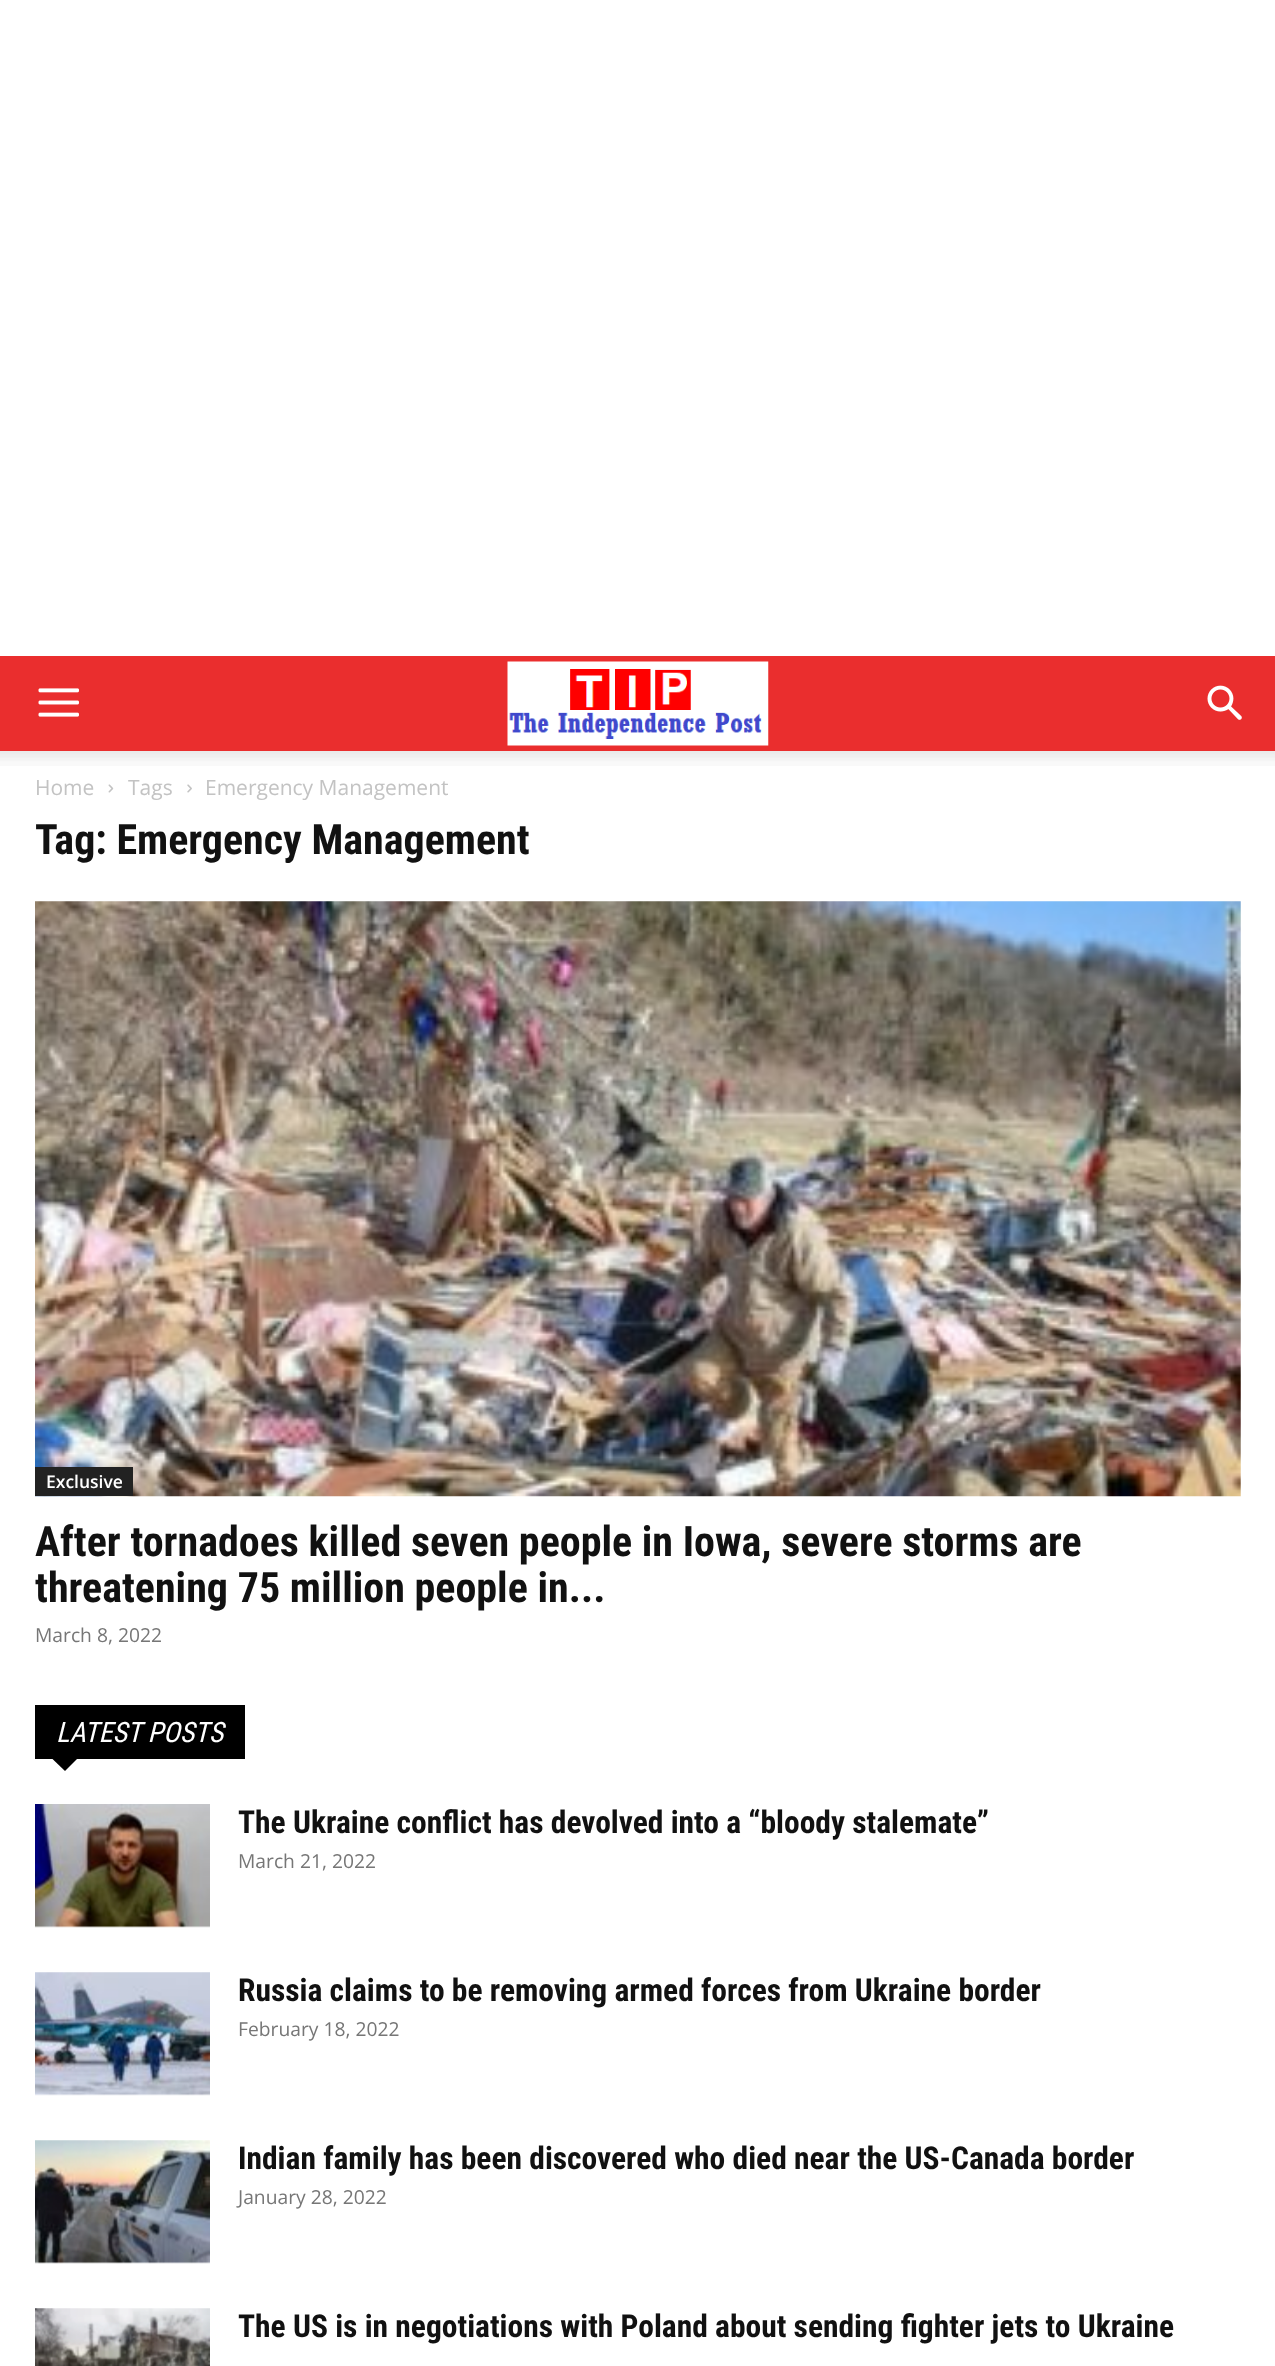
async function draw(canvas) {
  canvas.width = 1275;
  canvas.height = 2366;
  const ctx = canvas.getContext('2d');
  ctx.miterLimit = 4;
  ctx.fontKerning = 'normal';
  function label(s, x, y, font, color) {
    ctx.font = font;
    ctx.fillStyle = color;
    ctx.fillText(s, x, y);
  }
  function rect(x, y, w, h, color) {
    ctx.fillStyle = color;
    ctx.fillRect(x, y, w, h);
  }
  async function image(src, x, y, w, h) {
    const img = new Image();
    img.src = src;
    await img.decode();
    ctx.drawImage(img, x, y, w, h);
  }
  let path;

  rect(0, 0, 1275, 2366, '#fff');
  rect(0, 656, 1275, 95, '#ea2e2e');
  await image('assets/img1.png', 38, 688, 41, 29);
  await image('assets/img2.png', 507, 661, 262, 85);
  await image('assets/img3.png', 1207, 685, 35, 35);
  await image('assets/img4.png', 0, 751, 1275, 15);
  label('Home', 35, 795, '21px Open Sans', '#c3c3c3');
  await image('assets/img5.png', 108, 784, 6, 9);
  label('Tags', 128, 795, '21px Open Sans', '#c3c3c3');
  await image('assets/img6.png', 187, 784, 5, 9);
  label('Emergency Management', 205, 795, '21px Open Sans', '#c3c3c3');
  label('Tag: Emergency Management', 35, 854, 'bold 42px Roboto Condensed', '#111');
  await image('assets/img7.png', 35, 901, 1206, 596);
  rect(35, 1467, 98, 29, '#222');
  label('Exclusive', 46, 1488, '600 17.5px Open Sans', '#fff');
  label('After tornadoes killed seven people in Iowa, severe storms are', 35, 1556, 'bold 42px Roboto Condensed', '#111');
  label('threatening 75 million people in...', 35, 1602, 'bold 42px Roboto Condensed', '#111');
  label('March 8, 2022', 35, 1642, '19.25px Open Sans', '#767676');
  rect(35, 1705, 210, 54, '#000');
  label('LATEST POSTS', 56, 1742, 'italic 28px Roboto Condensed', '#fff');
  ctx.fillStyle = '#000';
  path = new Path2D('M52.5 1759H77L65 1771Z');
  ctx.fill(path);
  await image('assets/img8.png', 35, 1804, 175, 124);
  label('The Ukraine conflict has devolved into a “bloody stalemate”', 238, 1833, 'bold 31.5px Roboto Condensed', '#111');
  label('March 21, 2022', 238, 1868, '19.25px Open Sans', '#767676');
  await image('assets/img9.png', 35, 1972, 175, 124);
  label('Russia claims to be removing armed forces from Ukraine border', 238, 2001, 'bold 31.5px Roboto Condensed', '#111');
  label('February 18, 2022', 238, 2036, '19.25px Open Sans', '#767676');
  await image('assets/img10.png', 35, 2140, 175, 124);
  label('Indian family has been discovered who died near the US-Canada border', 238, 2169, 'bold 31.5px Roboto Condensed', '#111');
  label('January 28, 2022', 238, 2204, '19.25px Open Sans', '#767676');
  await image('assets/img11.png', 35, 2308, 175, 58);
  label('The US is in negotiations with Poland about sending fighter jets to Ukraine', 238, 2337, 'bold 31.5px Roboto Condensed', '#111');
}

draw(document.querySelector('canvas'));
